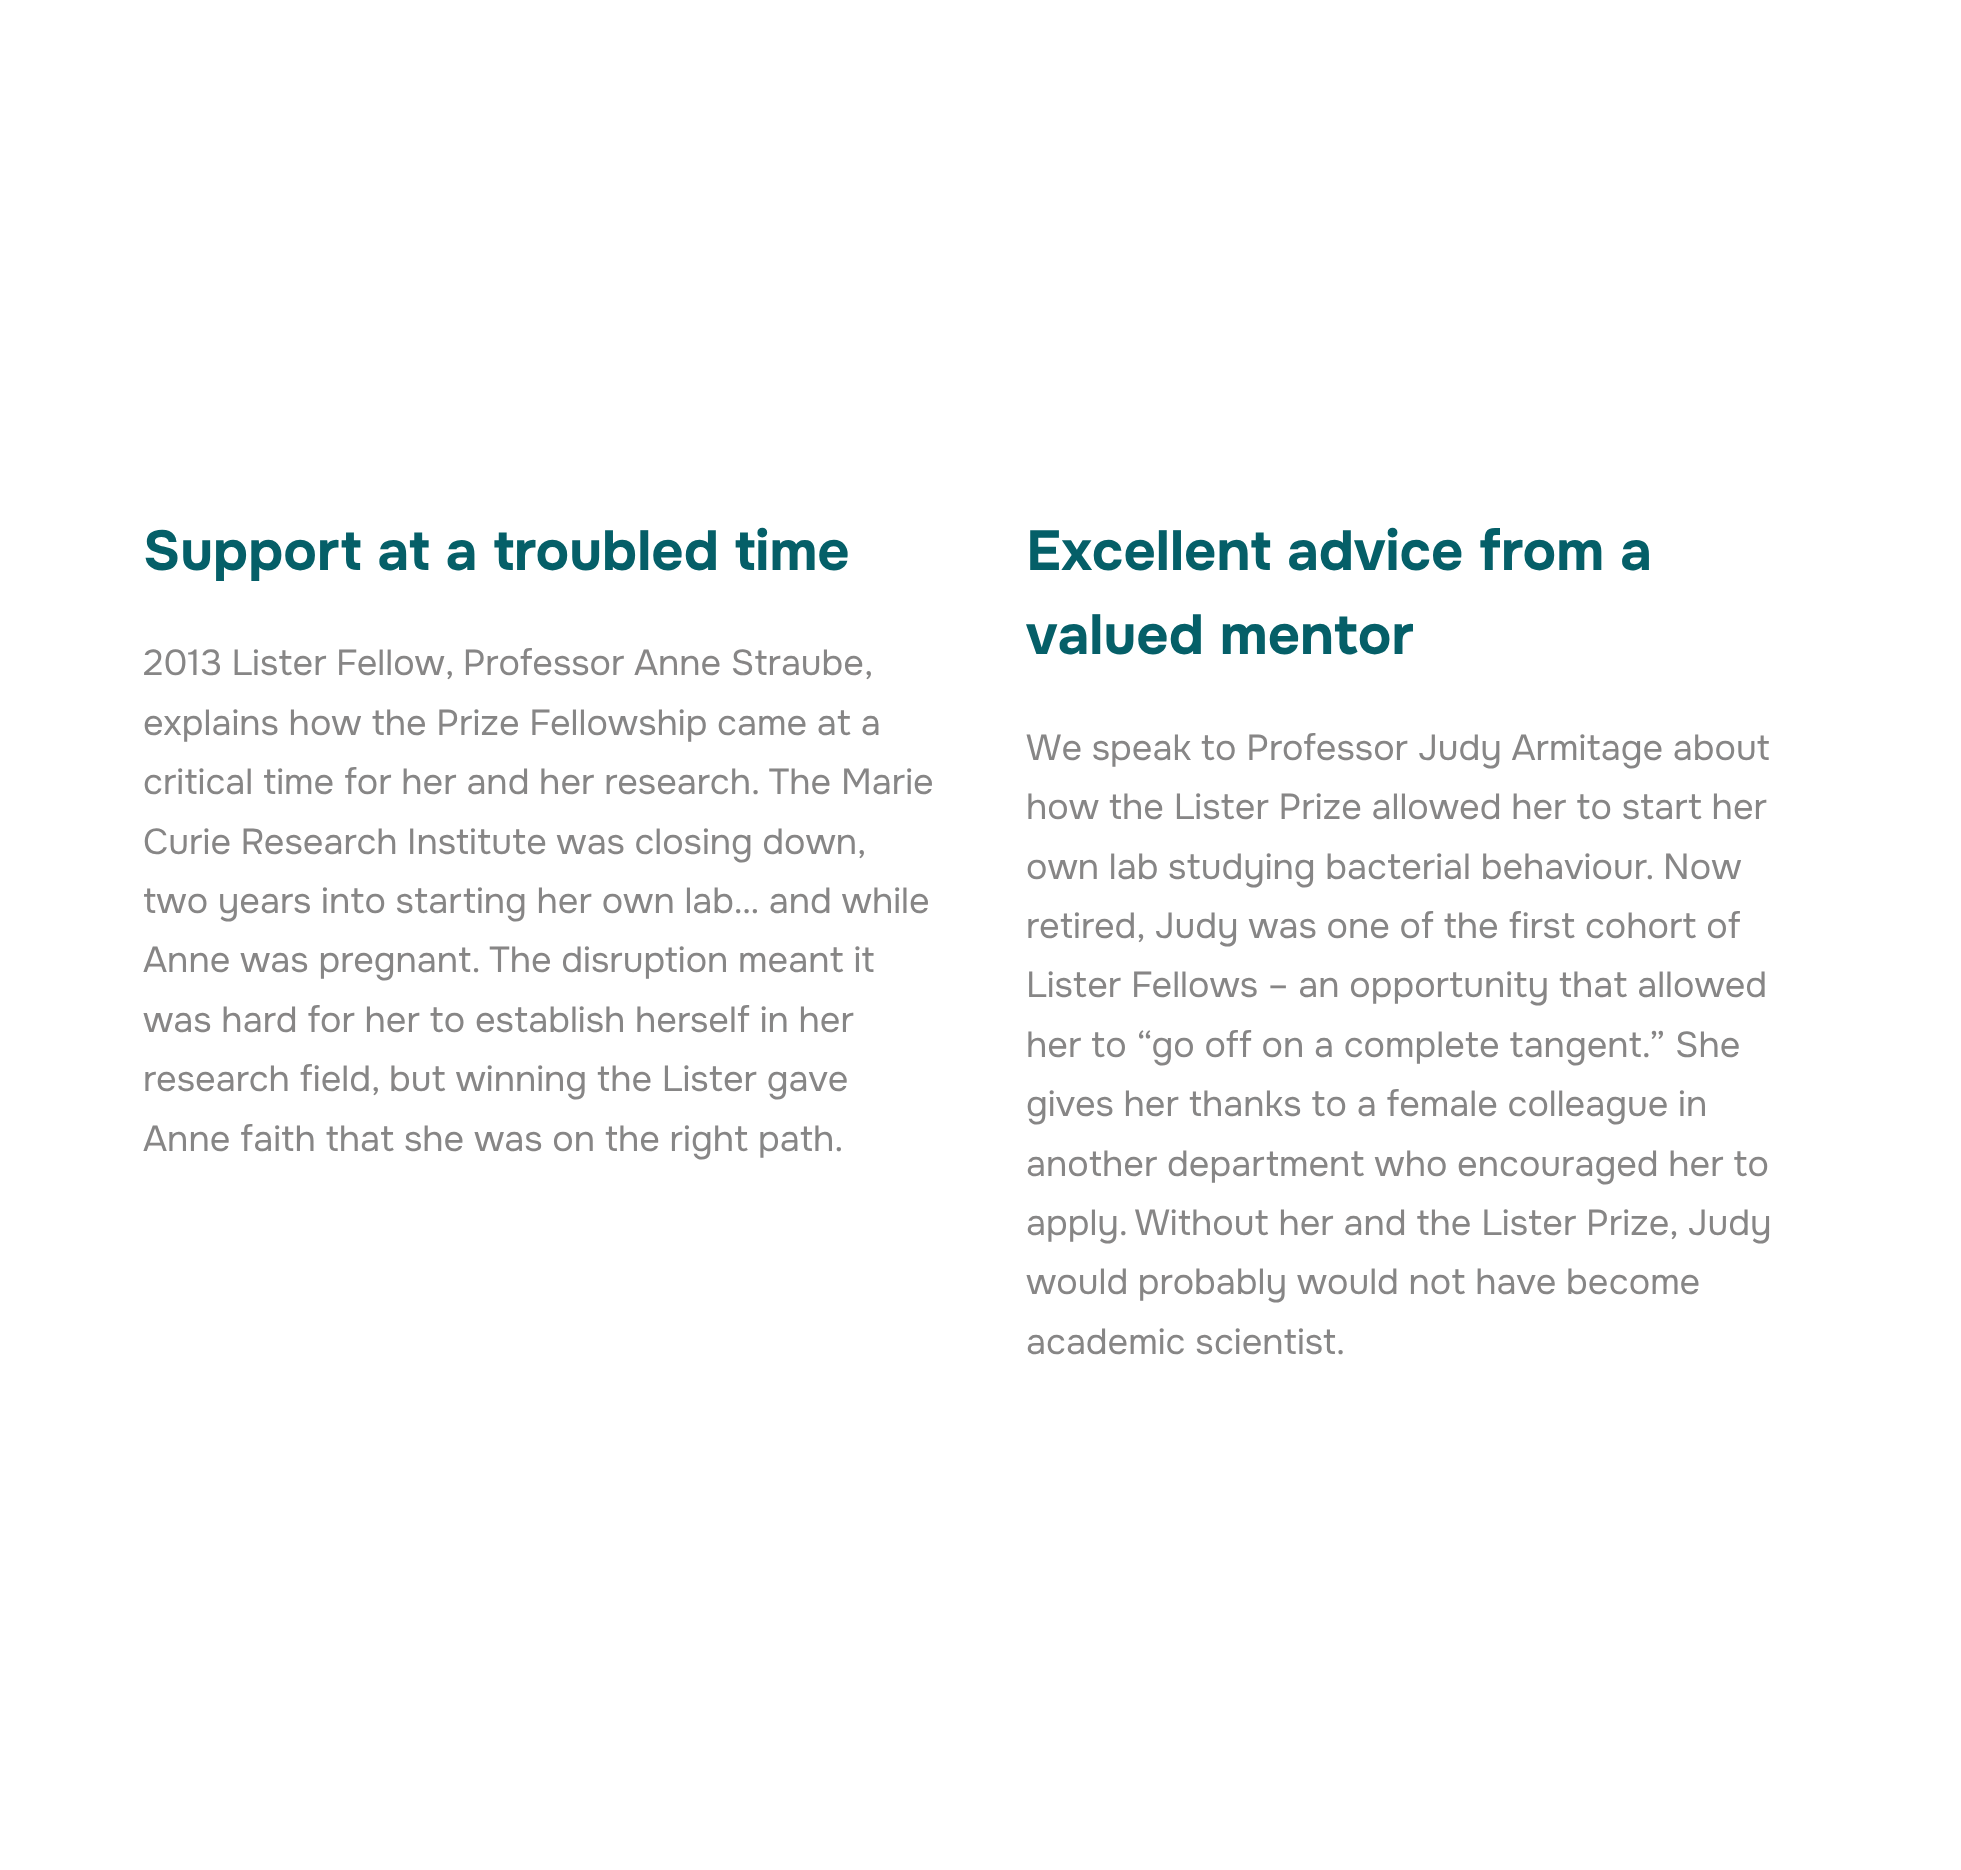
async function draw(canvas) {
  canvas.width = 1961;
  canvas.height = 1870;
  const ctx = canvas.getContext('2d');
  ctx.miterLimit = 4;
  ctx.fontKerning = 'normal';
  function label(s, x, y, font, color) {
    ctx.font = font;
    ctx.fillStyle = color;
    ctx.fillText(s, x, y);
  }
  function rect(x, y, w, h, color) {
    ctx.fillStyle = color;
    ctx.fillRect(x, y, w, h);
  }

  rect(0, 0, 1961, 1870, '#fff');
  label('Support at a troubled time', 143, 570, 'bold 56.25px Onest', '#055f68');
  ctx.wordSpacing = '-0.25px';
  label('2013 Lister Fellow, Professor Anne Straube,', 143, 675, '36px Onest', '#878686');
  ctx.wordSpacing = '0px';
  label('explains how the Prize Fellowship came at a', 143, 735, '36px Onest', '#878686');
  label('critical time for her and her research. The Marie', 143, 794, '36px Onest', '#878686');
  ctx.wordSpacing = '-0.25px';
  label('Curie Research Institute was closing down,', 143, 854, '36px Onest', '#878686');
  ctx.wordSpacing = '0px';
  label('two years into starting her own lab… and while', 143, 913, '36px Onest', '#878686');
  label('Anne was pregnant. The disruption meant it', 143, 972, '36px Onest', '#878686');
  label('was hard for her to establish herself in her', 143, 1032, '36px Onest', '#878686');
  label('research field, but winning the Lister gave', 143, 1091, '36px Onest', '#878686');
  label('Anne faith that she was on the right path.', 143, 1151, '36px Onest', '#878686');
  label('Excellent advice from a', 1026, 570, 'bold 56.25px Onest', '#055f68');
  label('valued mentor', 1026, 654, 'bold 56.25px Onest', '#055f68');
  label('We speak to Professor Judy Armitage about', 1026, 760, '36px Onest', '#878686');
  label('how the Lister Prize allowed her to start her', 1026, 819, '36px Onest', '#878686');
  label('own lab studying bacterial behaviour. Now', 1026, 879, '36px Onest', '#878686');
  label('retired, Judy was one of the first cohort of', 1026, 938, '36px Onest', '#878686');
  label('Lister Fellows – an opportunity that allowed', 1026, 997, '36px Onest', '#878686');
  label('her to “go off on a complete tangent.” She', 1026, 1057, '36px Onest', '#878686');
  label('gives her thanks to a female colleague in', 1026, 1116, '36px Onest', '#878686');
  label('another department who encouraged her to', 1026, 1176, '36px Onest', '#878686');
  label('apply. Without her and the Lister Prize, Judy', 1026, 1235, '36px Onest', '#878686');
  label('would probably would not have become', 1026, 1294, '36px Onest', '#878686');
  label('academic scientist.', 1026, 1354, '36px Onest', '#878686');
}

draw(document.querySelector('canvas'));
